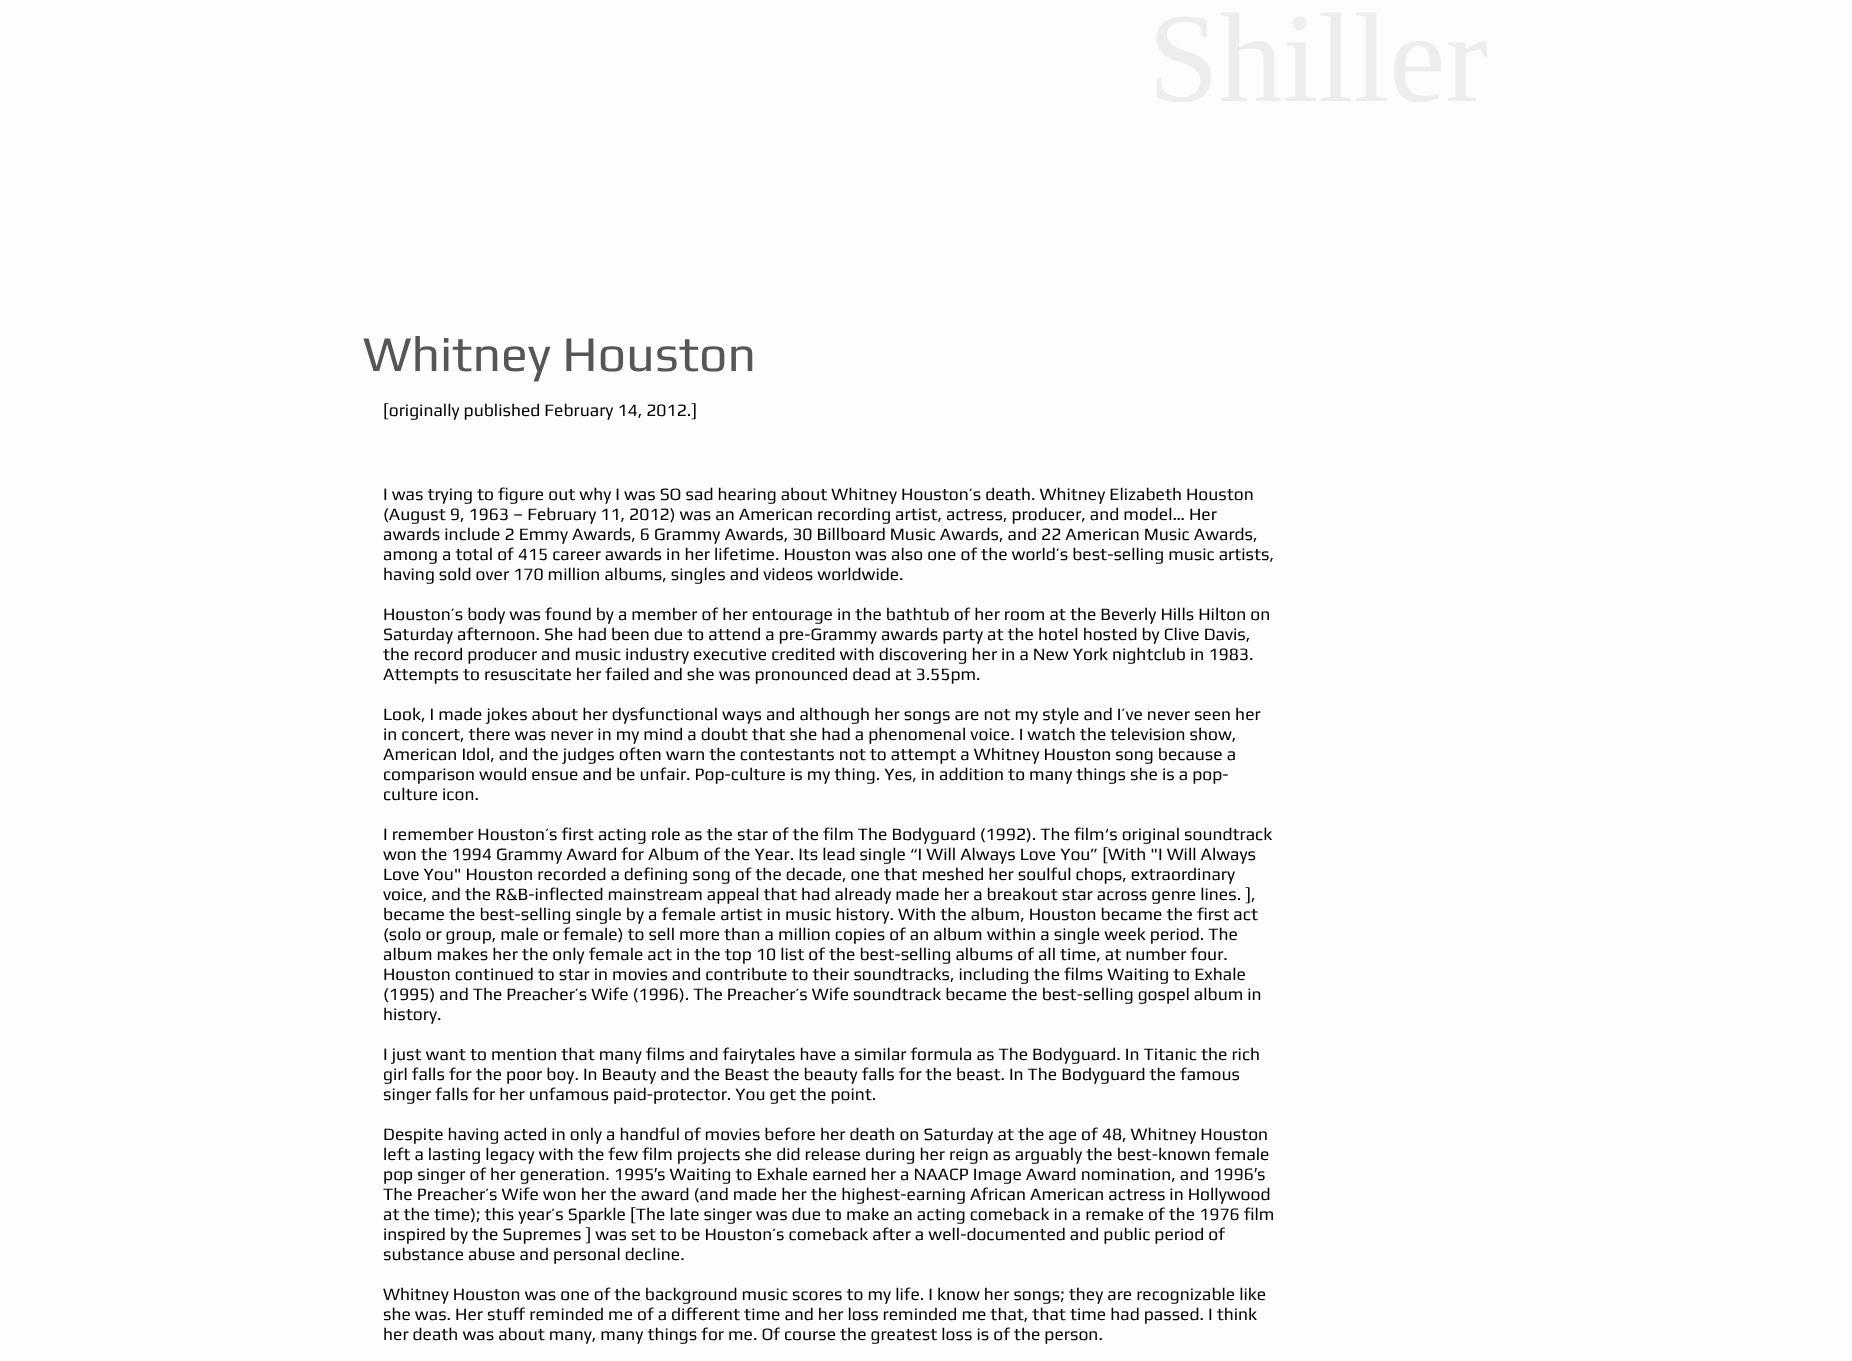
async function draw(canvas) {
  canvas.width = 1852;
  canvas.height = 1361;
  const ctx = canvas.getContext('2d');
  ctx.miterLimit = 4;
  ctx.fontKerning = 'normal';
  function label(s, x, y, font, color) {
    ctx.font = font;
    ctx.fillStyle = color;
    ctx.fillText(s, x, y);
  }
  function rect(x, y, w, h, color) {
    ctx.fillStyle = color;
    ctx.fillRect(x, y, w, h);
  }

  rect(0, 0, 1852, 1361, '#fefdfd');
  label('Shiller', 1148, 101, '127.5px Liberation Serif', '#ededed');
  label('Whitney Houston', 363, 371, '50px Play', '#565656');
  label('[originally published February 14, 2012.]', 383, 416, '17.5px Play', '#000');
  label('I was trying to figure out why I was SO sad hearing about Whitney Houston’s death. Whitney Elizabeth Houston', 383, 500, '17.5px Play', '#000');
  label('(August 9, 1963 – February 11, 2012) was an American recording artist, actress, producer, and model… Her', 383, 520, '17.5px Play', '#000');
  label('awards include 2 Emmy Awards, 6 Grammy Awards, 30 Billboard Music Awards, and 22 American Music Awards,', 383, 540, '17.5px Play', '#000');
  label('among a total of 415 career awards in her lifetime. Houston was also one of the world’s best-selling music artists,', 383, 560, '17.5px Play', '#000');
  label('having sold over 170 million albums, singles and videos worldwide.', 383, 580, '17.5px Play', '#000');
  label('Houston’s body was found by a member of her entourage in the bathtub of her room at the Beverly Hills Hilton on', 383, 620, '17.5px Play', '#000');
  label('Saturday afternoon. She had been due to attend a pre-Grammy awards party at the hotel hosted by Clive Davis,', 383, 640, '17.5px Play', '#000');
  label('the record producer and music industry executive credited with discovering her in a New York nightclub in 1983.', 383, 660, '17.5px Play', '#000');
  label('Attempts to resuscitate her failed and she was pronounced dead at 3.55pm.', 383, 680, '17.5px Play', '#000');
  label('Look, I made jokes about her dysfunctional ways and although her songs are not my style and I’ve never seen her', 383, 720, '17.5px Play', '#000');
  label('in concert, there was never in my mind a doubt that she had a phenomenal voice. I watch the television show,', 383, 740, '17.5px Play', '#000');
  label('American Idol, and the judges often warn the contestants not to attempt a Whitney Houston song because a', 383, 760, '17.5px Play', '#000');
  label('comparison would ensue and be unfair. Pop-culture is my thing. Yes, in addition to many things she is a pop-', 383, 780, '17.5px Play', '#000');
  label('culture icon.', 383, 800, '17.5px Play', '#000');
  label('I remember Houston’s first acting role as the star of the film The Bodyguard (1992). The film‘s original soundtrack', 383, 840, '17.5px Play', '#000');
  label('won the 1994 Grammy Award for Album of the Year. Its lead single “I Will Always Love You” [With "I Will Always', 383, 860, '17.5px Play', '#000');
  label('Love You" Houston recorded a defining song of the decade, one that meshed her soulful chops, extraordinary', 383, 880, '17.5px Play', '#000');
  label('voice, and the R&B-inflected mainstream appeal that had already made her a breakout star across genre lines. ],', 383, 900, '17.5px Play', '#000');
  label('became the best-selling single by a female artist in music history. With the album, Houston became the first act', 383, 920, '17.5px Play', '#000');
  label('(solo or group, male or female) to sell more than a million copies of an album within a single week period. The', 383, 940, '17.5px Play', '#000');
  label('album makes her the only female act in the top 10 list of the best-selling albums of all time, at number four.', 383, 960, '17.5px Play', '#000');
  label('Houston continued to star in movies and contribute to their soundtracks, including the films Waiting to Exhale', 383, 980, '17.5px Play', '#000');
  label('(1995) and The Preacher’s Wife (1996). The Preacher’s Wife soundtrack became the best-selling gospel album in', 383, 1000, '17.5px Play', '#000');
  label('history.', 383, 1020, '17.5px Play', '#000');
  label('I just want to mention that many films and fairytales have a similar formula as The Bodyguard. In Titanic the rich', 383, 1060, '17.5px Play', '#000');
  label('girl falls for the poor boy. In Beauty and the Beast the beauty falls for the beast. In The Bodyguard the famous', 383, 1080, '17.5px Play', '#000');
  label('singer falls for her unfamous paid-protector. You get the point.', 383, 1100, '17.5px Play', '#000');
  label('Despite having acted in only a handful of movies before her death on Saturday at the age of 48, Whitney Houston', 383, 1140, '17.5px Play', '#000');
  label('left a lasting legacy with the few film projects she did release during her reign as arguably the best-known female', 383, 1160, '17.5px Play', '#000');
  label('pop singer of her generation. 1995', 383, 1180, '17.5px Play', '#000');
  label('′', 654, 1180, '17.5px Liberation Sans', '#000');
  label('s Waiting to Exhale earned her a NAACP Image Award nomination, and 1996', 657, 1180, '17.5px Play', '#000');
  label('′', 1254, 1180, '17.5px Liberation Sans', '#000');
  label('s', 1257, 1180, '17.5px Play', '#000');
  label('The Preacher’s Wife won her the award (and made her the highest-earning African American actress in Hollywood', 383, 1200, '17.5px Play', '#000');
  label('at the time); this year’s Sparkle [The late singer was due to make an acting comeback in a remake of the 1976 film', 383, 1220, '17.5px Play', '#000');
  label('inspired by the Supremes ] was set to be Houston’s comeback after a well-documented and public period of', 383, 1240, '17.5px Play', '#000');
  label('substance abuse and personal decline.', 383, 1260, '17.5px Play', '#000');
  label('Whitney Houston was one of the background music scores to my life. I know her songs; they are recognizable like', 383, 1300, '17.5px Play', '#000');
  label('she was. Her stuff reminded me of a different time and her loss reminded me that, that time had passed. I think', 383, 1320, '17.5px Play', '#000');
  label('her death was about many, many things for me. Of course the greatest loss is of the person.', 383, 1340, '17.5px Play', '#000');
}

draw(document.querySelector('canvas'));
